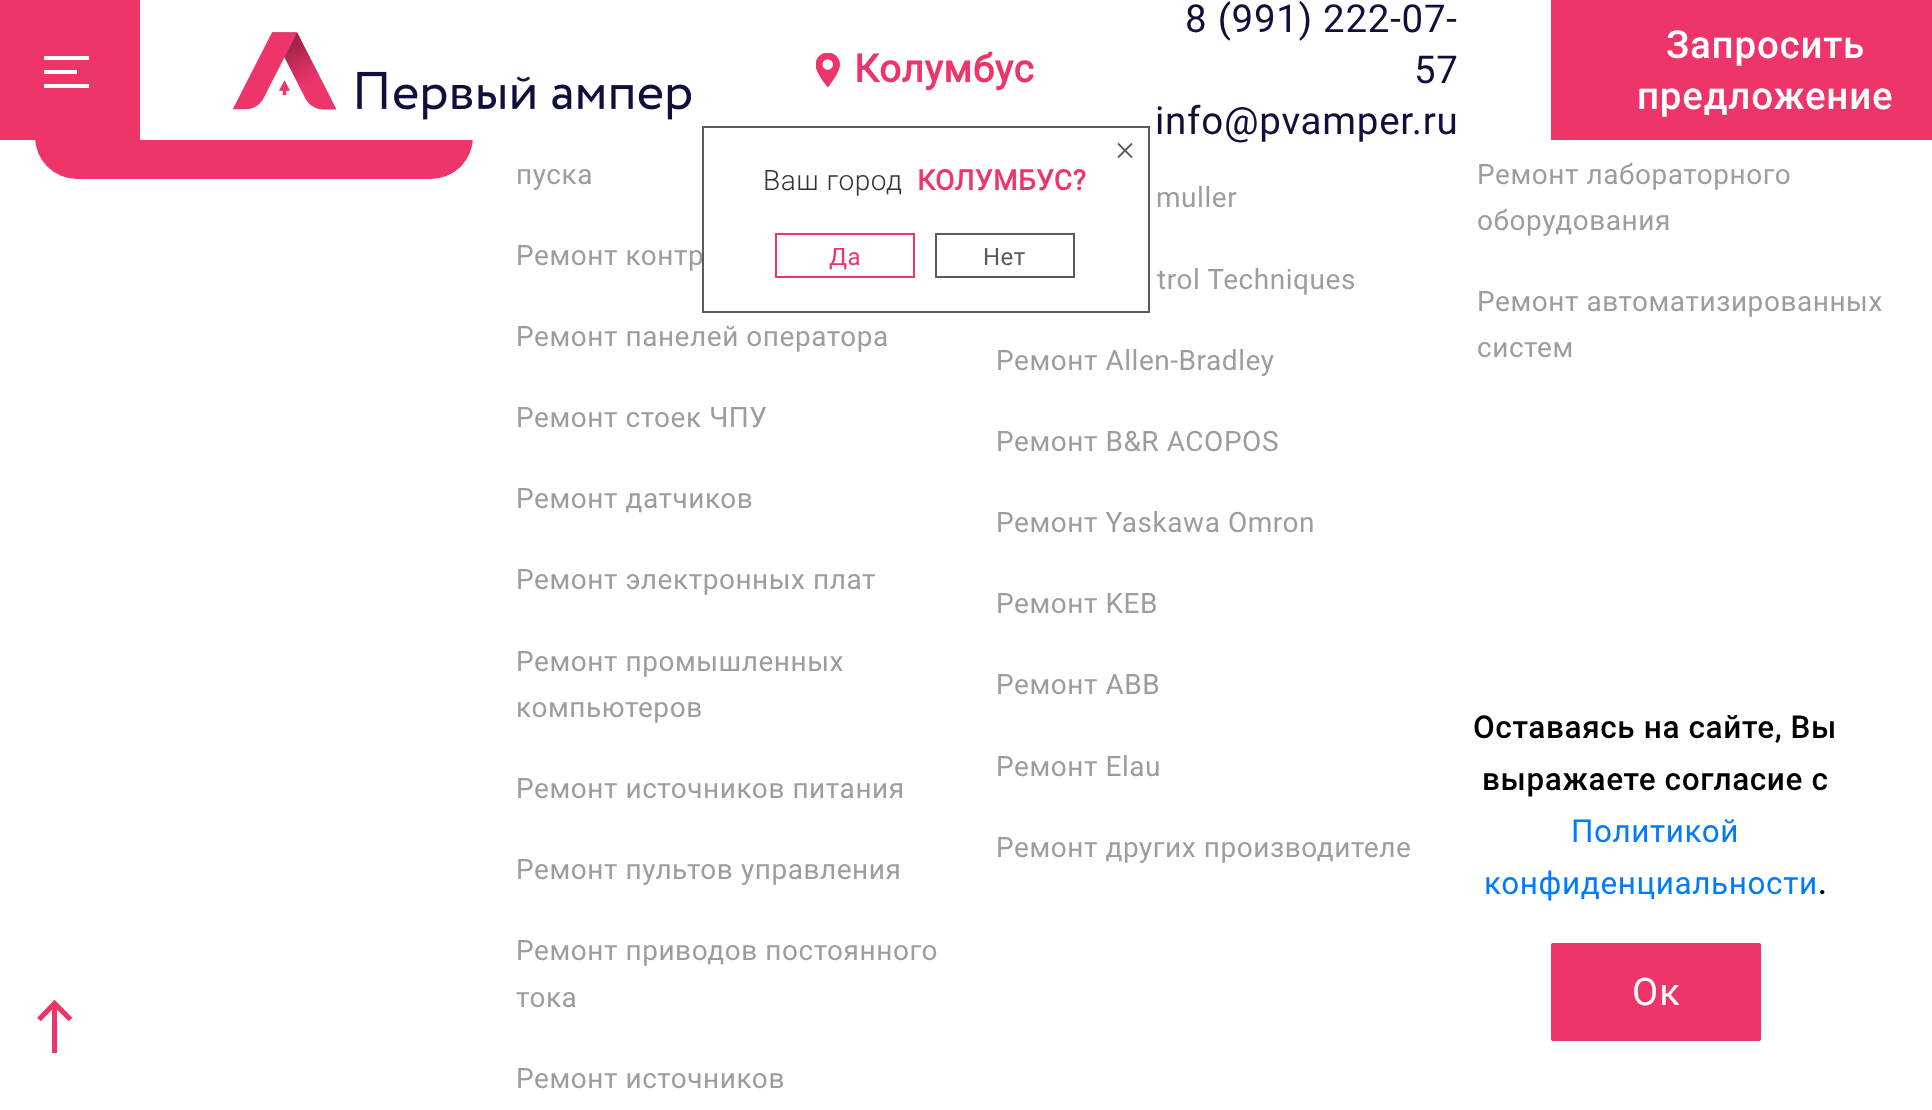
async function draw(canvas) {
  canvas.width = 1932;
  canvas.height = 1110;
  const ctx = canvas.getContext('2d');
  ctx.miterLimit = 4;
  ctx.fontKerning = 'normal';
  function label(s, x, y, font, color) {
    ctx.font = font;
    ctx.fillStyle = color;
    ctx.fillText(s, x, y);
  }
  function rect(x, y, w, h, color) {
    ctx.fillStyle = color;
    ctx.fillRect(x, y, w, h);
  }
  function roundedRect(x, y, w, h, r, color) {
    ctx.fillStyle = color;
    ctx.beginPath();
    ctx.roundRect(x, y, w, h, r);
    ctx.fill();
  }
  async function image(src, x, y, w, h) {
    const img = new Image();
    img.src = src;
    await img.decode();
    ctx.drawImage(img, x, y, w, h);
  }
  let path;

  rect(0, 0, 1932, 1110, '#fff');
  roundedRect(35, 95, 438, 84, 42, '#ed356a');
  rect(140, 95, 333, 45, '#fff');
  rect(0, 0, 140, 140, '#ed356a');
  rect(44, 56, 45, 4, '#fff');
  rect(44, 70, 33, 4, '#fff');
  rect(44, 84, 45, 4, '#fff');
  await image('assets/img1.png', 233, 32, 458, 88);
  await image('assets/img2.png', 816, 53, 24, 35);
  ctx.letterSpacing = '0.75px';
  label('Колумбус', 854, 82, 'bold 38.5px Roboto', '#ed356a');
  ctx.letterSpacing = '0.55px';
  label('Ремонт контр', 516, 265, '28px Roboto', '#9d9d9d');
  ctx.strokeStyle = '#5b5b5b';
  ctx.lineWidth = 2;
  ctx.strokeRect(703, 127, 446, 185);
  path = new Path2D('M1118 143.5L1132 157.5M1132 143.5L1118 157.5');
  ctx.lineWidth = 1.8;
  ctx.stroke(path);
  label('Ваш город', 763, 190, '300 28px Roboto', '#333');
  label('КОЛУМБУС?', 917, 190, 'bold 28px Roboto', '#ed356a');
  ctx.strokeStyle = '#ed356a';
  ctx.lineWidth = 2;
  ctx.strokeRect(776, 234, 138, 43);
  ctx.letterSpacing = '0.5px';
  label('Да', 829, 265, '24px "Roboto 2"', '#ed356a');
  ctx.strokeStyle = '#5b5b5b';
  ctx.strokeRect(936, 234, 138, 43);
  label('Нет', 983, 265, '24px "Roboto 2"', '#5b5b5b');
  ctx.letterSpacing = '0.75px';
  label('8 (991) 222-07-', 1185, 32, '38.5px Roboto', '#0f0f3c');
  label('57', 1414, 83, '38.5px Roboto', '#0f0f3c');
  label('info@pvamper.ru', 1155, 134, '38.5px "Roboto 2"', '#0f0f3c');
  rect(1551, 0, 381, 140, '#ed356a');
  label('Запросить', 1666, 58, '500 38.5px Roboto', '#fff');
  label('предложение', 1637, 109, '500 38.5px Roboto', '#fff');
  path = new Path2D('M39 1019.5L54.5 1003.5L70.5 1019.5');
  ctx.strokeStyle = '#ed356a';
  ctx.lineWidth = 5.3;
  ctx.stroke(path);
  rect(52, 1005, 5, 48, '#ed356a');
  ctx.letterSpacing = '0.55px';
  label('пуска', 516, 184, '28px Roboto', '#9d9d9d');
  label('Ремонт панелей оператора', 516, 346, '28px Roboto', '#9d9d9d');
  label('Ремонт стоек ЧПУ', 516, 427, '28px Roboto', '#9d9d9d');
  label('Ремонт датчиков', 516, 508, '28px Roboto', '#9d9d9d');
  label('Ремонт электронных плат', 516, 589, '28px Roboto', '#9d9d9d');
  label('Ремонт промышленных', 516, 671, '28px Roboto', '#9d9d9d');
  label('компьютеров', 516, 717, '28px Roboto', '#9d9d9d');
  label('Ремонт источников питания', 516, 798, '28px Roboto', '#9d9d9d');
  label('Ремонт пультов управления', 516, 879, '28px Roboto', '#9d9d9d');
  label('Ремонт приводов постоянного', 516, 960, '28px Roboto', '#9d9d9d');
  label('тока', 516, 1007, '28px Roboto', '#9d9d9d');
  label('Ремонт источников', 516, 1088, '28px Roboto', '#9d9d9d');
  label('muller', 1156, 207, '28px Roboto', '#9d9d9d');
  label('trol Techniques', 1157, 289, '28px Roboto', '#9d9d9d');
  label('Ремонт Allen-Bradley', 996, 370, '28px Roboto', '#9d9d9d');
  label('Ремонт B&R ACOPOS', 996, 451, '28px Roboto', '#9d9d9d');
  label('Ремонт Yaskawa Omron', 996, 532, '28px Roboto', '#9d9d9d');
  label('Ремонт KEB', 996, 613, '28px Roboto', '#9d9d9d');
  label('Ремонт ABB', 996, 694, '28px Roboto', '#9d9d9d');
  label('Ремонт Elau', 996, 776, '28px Roboto', '#9d9d9d');
  label('Ремонт других производителе', 996, 857, '28px Roboto', '#9d9d9d');
  label('Ремонт лабораторного', 1477, 184, '28px Roboto', '#9d9d9d');
  label('оборудования', 1477, 230, '28px Roboto', '#9d9d9d');
  label('Ремонт автоматизированных', 1477, 311, '28px Roboto', '#9d9d9d');
  label('систем', 1477, 357, '28px Roboto', '#9d9d9d');
  ctx.letterSpacing = '0.6px';
  label('Оставаясь на сайте, Вы', 1473, 738, '500 31.5px Roboto', '#000');
  label('выражаете согласие с', 1482, 790, '500 31.5px Roboto', '#000');
  label('Политикой', 1571, 842, '31.5px Roboto', '#007bff');
  label('конфиденциальности', 1484, 894, '31.5px Roboto', '#007bff');
  label('.', 1818, 894, '500 31.5px Roboto', '#000');
  roundedRect(1551, 943, 210, 98, 2, '#ed356a');
  ctx.letterSpacing = '1px';
  label('Ок', 1632, 1005, '38px "Roboto 2"', '#fff');
}

draw(document.querySelector('canvas'));
